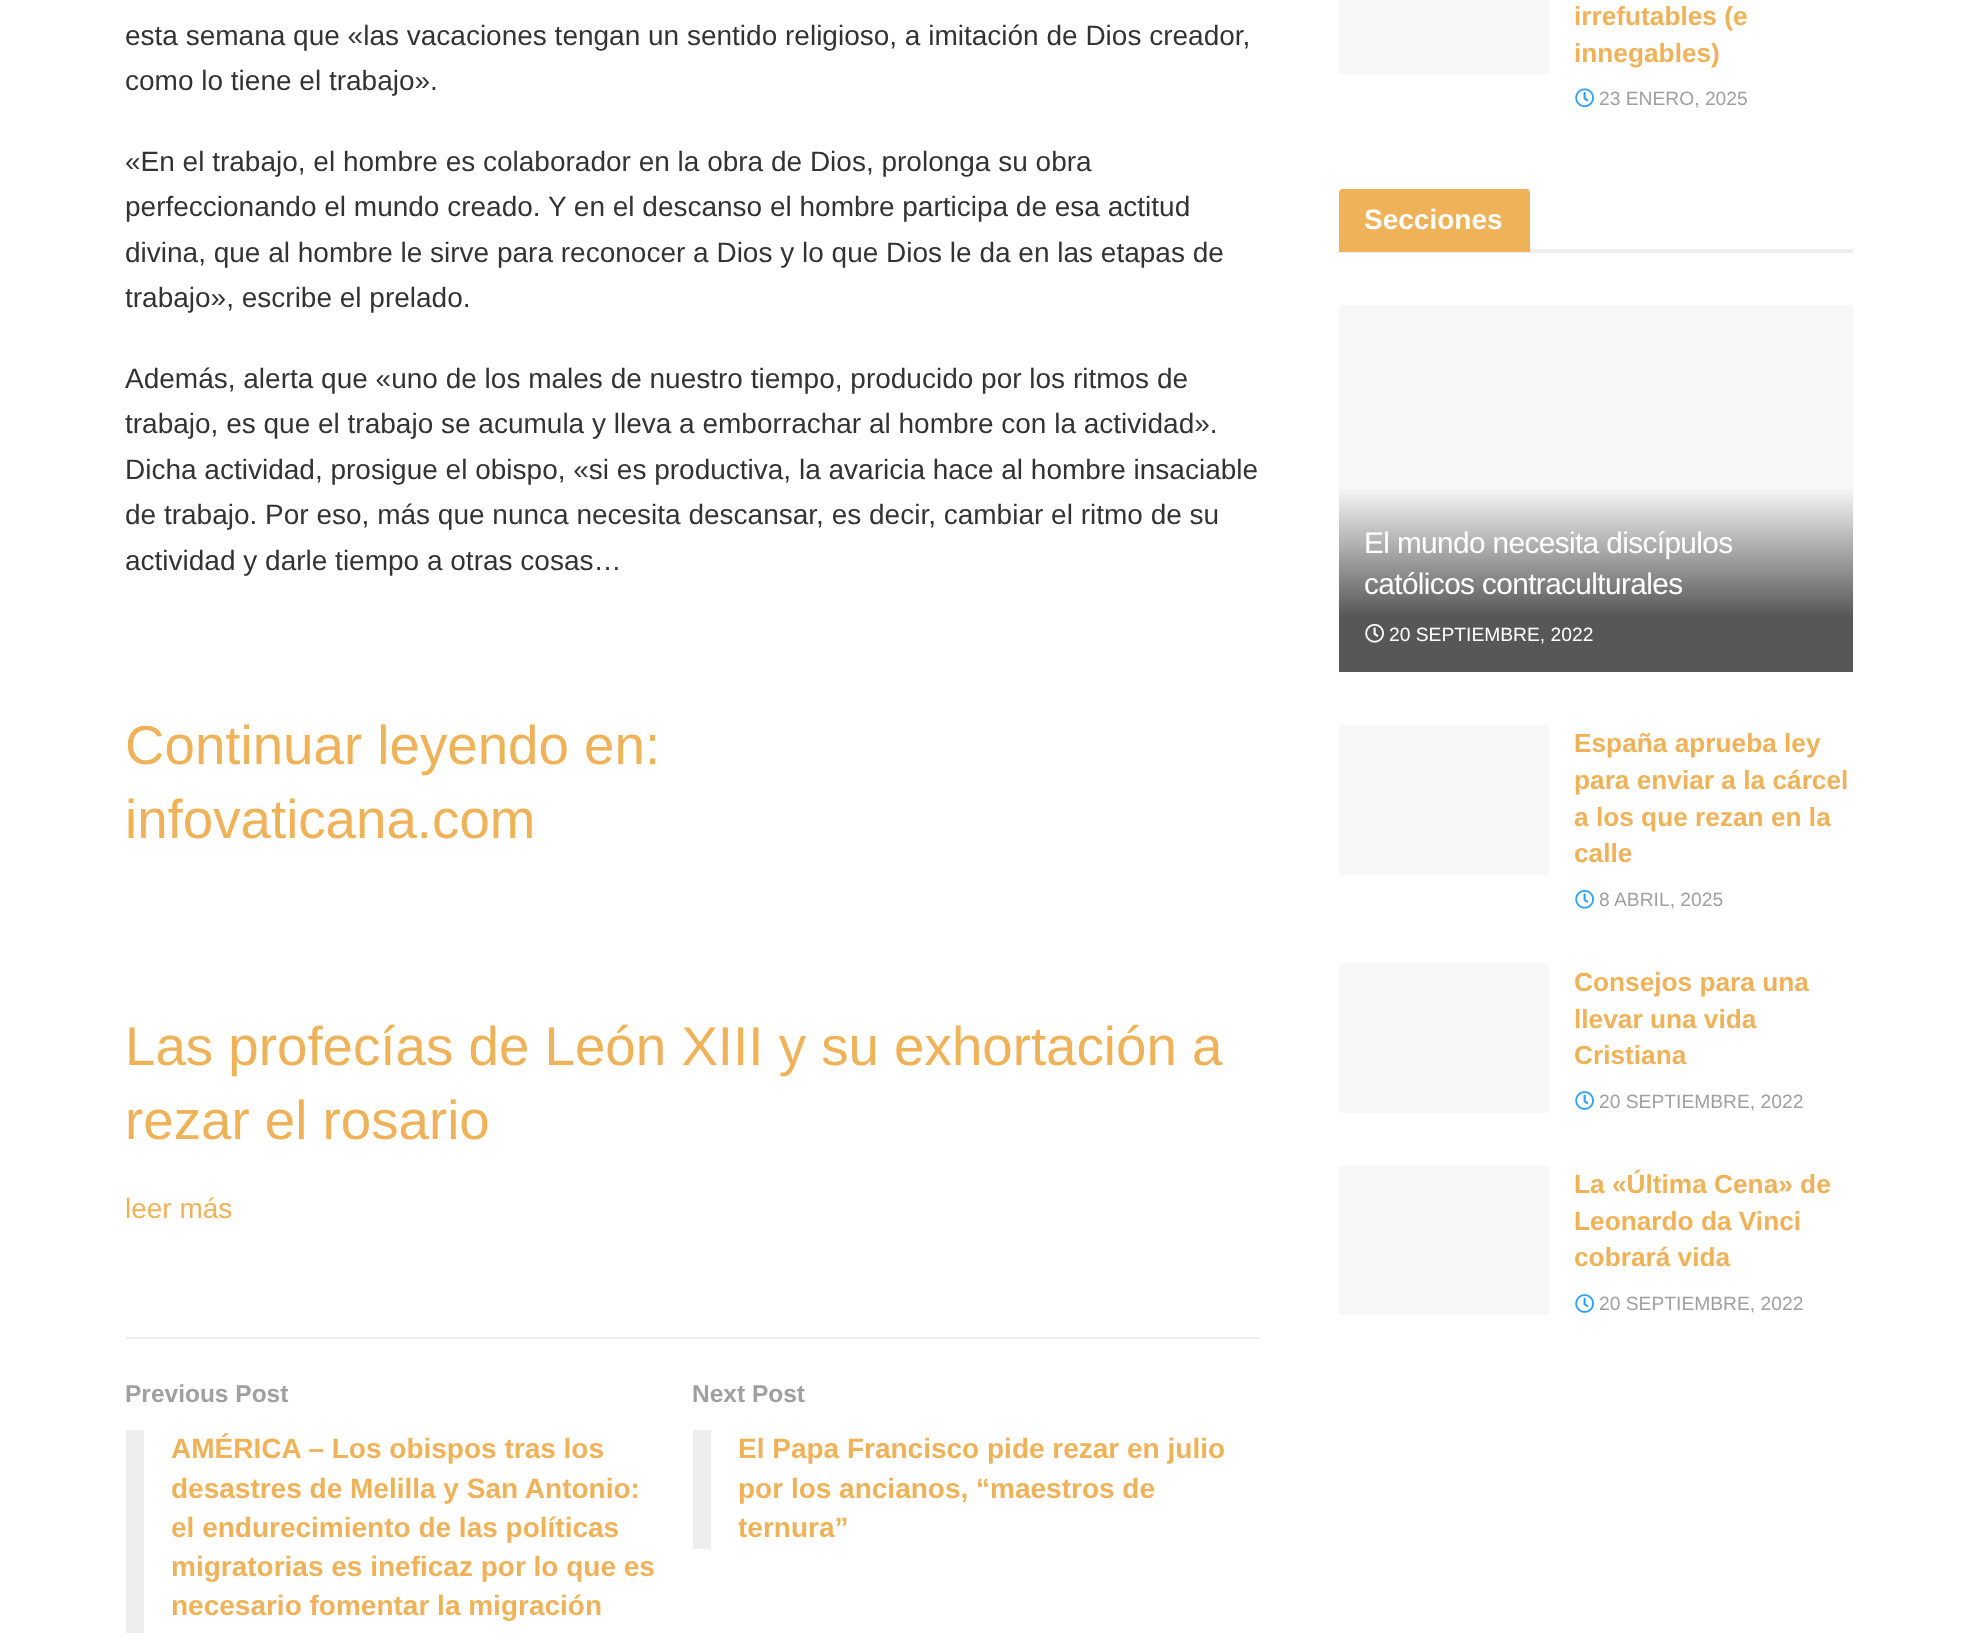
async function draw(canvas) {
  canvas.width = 1977;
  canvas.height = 1633;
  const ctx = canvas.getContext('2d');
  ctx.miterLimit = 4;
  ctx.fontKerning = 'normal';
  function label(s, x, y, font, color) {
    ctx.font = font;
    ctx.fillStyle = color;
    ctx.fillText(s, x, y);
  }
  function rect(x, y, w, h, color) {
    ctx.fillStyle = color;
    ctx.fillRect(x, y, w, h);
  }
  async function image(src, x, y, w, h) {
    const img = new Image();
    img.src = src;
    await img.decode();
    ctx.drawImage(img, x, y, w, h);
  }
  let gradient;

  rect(0, 0, 1977, 1633, '#fff');
  label('esta semana que «las vacaciones tengan un sentido religioso, a imitación de Dios creador,', 125, 45, '28px Liberation Sans', '#333');
  label('como lo tiene el trabajo».', 125, 90, '28px Liberation Sans', '#333');
  label('«En el trabajo, el hombre es colaborador en la obra de Dios, prolonga su obra', 125, 171, '28px Liberation Sans', '#333');
  label('perfeccionando el mundo creado. Y en el descanso el hombre participa de esa actitud', 125, 216, '28px Liberation Sans', '#333');
  label('divina, que al hombre le sirve para reconocer a Dios y lo que Dios le da en las etapas de', 125, 262, '28px Liberation Sans', '#333');
  label('trabajo», escribe el prelado.', 125, 307, '28px Liberation Sans', '#333');
  label('Además, alerta que «uno de los males de nuestro tiempo, producido por los ritmos de', 125, 388, '28px Liberation Sans', '#333');
  label('trabajo, es que el trabajo se acumula y lleva a emborrachar al hombre con la actividad».', 125, 433, '28px Liberation Sans', '#333');
  label('Dicha actividad, prosigue el obispo, «si es productiva, la avaricia hace al hombre insaciable', 125, 479, '28px Liberation Sans', '#333');
  label('de trabajo. Por eso, más que nunca necesita descansar, es decir, cambiar el ritmo de su', 125, 524, '28px Liberation Sans', '#333');
  label('actividad y darle tiempo a otras cosas…', 125, 570, '28px Liberation Sans', '#333');
  label('Continuar leyendo en:', 125, 764, '54.7px Liberation Sans', '#f0b259');
  label('infovaticana.com', 125, 838, '54.7px Liberation Sans', '#f0b259');
  label('Las profecías de León XIII y su exhortación a', 125, 1065, '54.7px Liberation Sans', '#f0b259');
  label('rezar el rosario', 125, 1139, '54.7px Liberation Sans', '#f0b259');
  label('leer más', 125, 1218, '28px Liberation Sans', '#f0b259');
  rect(126, 1337, 1134, 2, '#eee');
  label('Previous Post', 125, 1402, 'bold 24.5px Liberation Sans', '#a0a0a0');
  rect(126, 1430, 18, 203, '#eee');
  label('AMÉRICA – Los obispos tras los', 171, 1458, 'bold 28px Liberation Sans', '#f0b259');
  label('desastres de Melilla y San Antonio:', 171, 1498, 'bold 28px Liberation Sans', '#f0b259');
  label('el endurecimiento de las políticas', 171, 1537, 'bold 28px Liberation Sans', '#f0b259');
  label('migratorias es ineficaz por lo que es', 171, 1576, 'bold 28px Liberation Sans', '#f0b259');
  label('necesario fomentar la migración', 171, 1615, 'bold 28px Liberation Sans', '#f0b259');
  label('Next Post', 692, 1402, 'bold 24.5px Liberation Sans', '#a0a0a0');
  rect(693, 1430, 18, 119, '#eee');
  label('El Papa Francisco pide rezar en julio', 738, 1458, 'bold 28px Liberation Sans', '#f0b259');
  label('por los ancianos, “maestros de', 738, 1498, 'bold 28px Liberation Sans', '#f0b259');
  label('ternura”', 738, 1537, 'bold 28px Liberation Sans', '#f0b259');
  rect(1339, 0, 210, 74, '#f7f7f7');
  label('irrefutables (e', 1574, 25, 'bold 26.25px Liberation Sans', '#f0b259');
  label('innegables)', 1574, 62, 'bold 26.25px Liberation Sans', '#f0b259');
  await image('assets/img1.png', 1575, 88, 19, 20);
  label('23 ENERO, 2025', 1599, 105, '19.25px Liberation Sans', '#a0a0a0');
  rect(1339, 249, 514, 4, '#eee');
  ctx.fillStyle = '#f0b259';
  ctx.beginPath();
  ctx.roundRect(1339, 189, 191, 63, [4, 4, 0, 0]);
  ctx.fill();
  label('Secciones', 1364, 229, 'bold 28px Liberation Sans', '#fff');
  await image('assets/img2.png', 1339, 305, 515, 368);
  gradient = ctx.createLinearGradient(1596, 488, 1596, 672);
  gradient.addColorStop(0, '#f7f7f7');
  gradient.addColorStop(0.7, '#575757');
  ctx.fillStyle = gradient;
  ctx.fillRect(1339, 489, 514, 183);
  ctx.letterSpacing = '-0.6px';
  label('El mundo necesita discípulos', 1364, 553, '29.75px Liberation Sans', '#fff');
  label('católicos contraculturales', 1364, 594, '29.75px Liberation Sans', '#fff');
  await image('assets/img3.png', 1365, 624, 19, 19);
  ctx.letterSpacing = '0px';
  label('20 SEPTIEMBRE, 2022', 1389, 641, '19.25px Liberation Sans', '#fff');
  rect(1339, 725, 210, 150, '#f7f7f7');
  label('España aprueba ley', 1574, 752, 'bold 26.25px Liberation Sans', '#f0b259');
  label('para enviar a la cárcel', 1574, 789, 'bold 26.25px Liberation Sans', '#f0b259');
  label('a los que rezan en la', 1574, 826, 'bold 26.25px Liberation Sans', '#f0b259');
  label('calle', 1574, 862, 'bold 26.25px Liberation Sans', '#f0b259');
  await image('assets/img4.png', 1575, 890, 19, 19);
  label('8 ABRIL, 2025', 1599, 906, '19.25px Liberation Sans', '#a0a0a0');
  rect(1339, 963, 210, 150, '#f7f7f7');
  label('Consejos para una', 1574, 991, 'bold 26.25px Liberation Sans', '#f0b259');
  label('llevar una vida', 1574, 1028, 'bold 26.25px Liberation Sans', '#f0b259');
  label('Cristiana', 1574, 1064, 'bold 26.25px Liberation Sans', '#f0b259');
  await image('assets/img5.png', 1575, 1091, 19, 19);
  label('20 SEPTIEMBRE, 2022', 1599, 1108, '19.25px Liberation Sans', '#a0a0a0');
  rect(1339, 1166, 210, 148, '#f7f7f7');
  rect(1339, 1314, 210, 1, '#fafafa');
  label('La «Última Cena» de', 1574, 1193, 'bold 26.25px Liberation Sans', '#f0b259');
  label('Leonardo da Vinci', 1574, 1230, 'bold 26.25px Liberation Sans', '#f0b259');
  label('cobrará vida', 1574, 1266, 'bold 26.25px Liberation Sans', '#f0b259');
  await image('assets/img5.png', 1575, 1294, 19, 19);
  label('20 SEPTIEMBRE, 2022', 1599, 1310, '19.25px Liberation Sans', '#a0a0a0');
}

draw(document.querySelector('canvas'));
